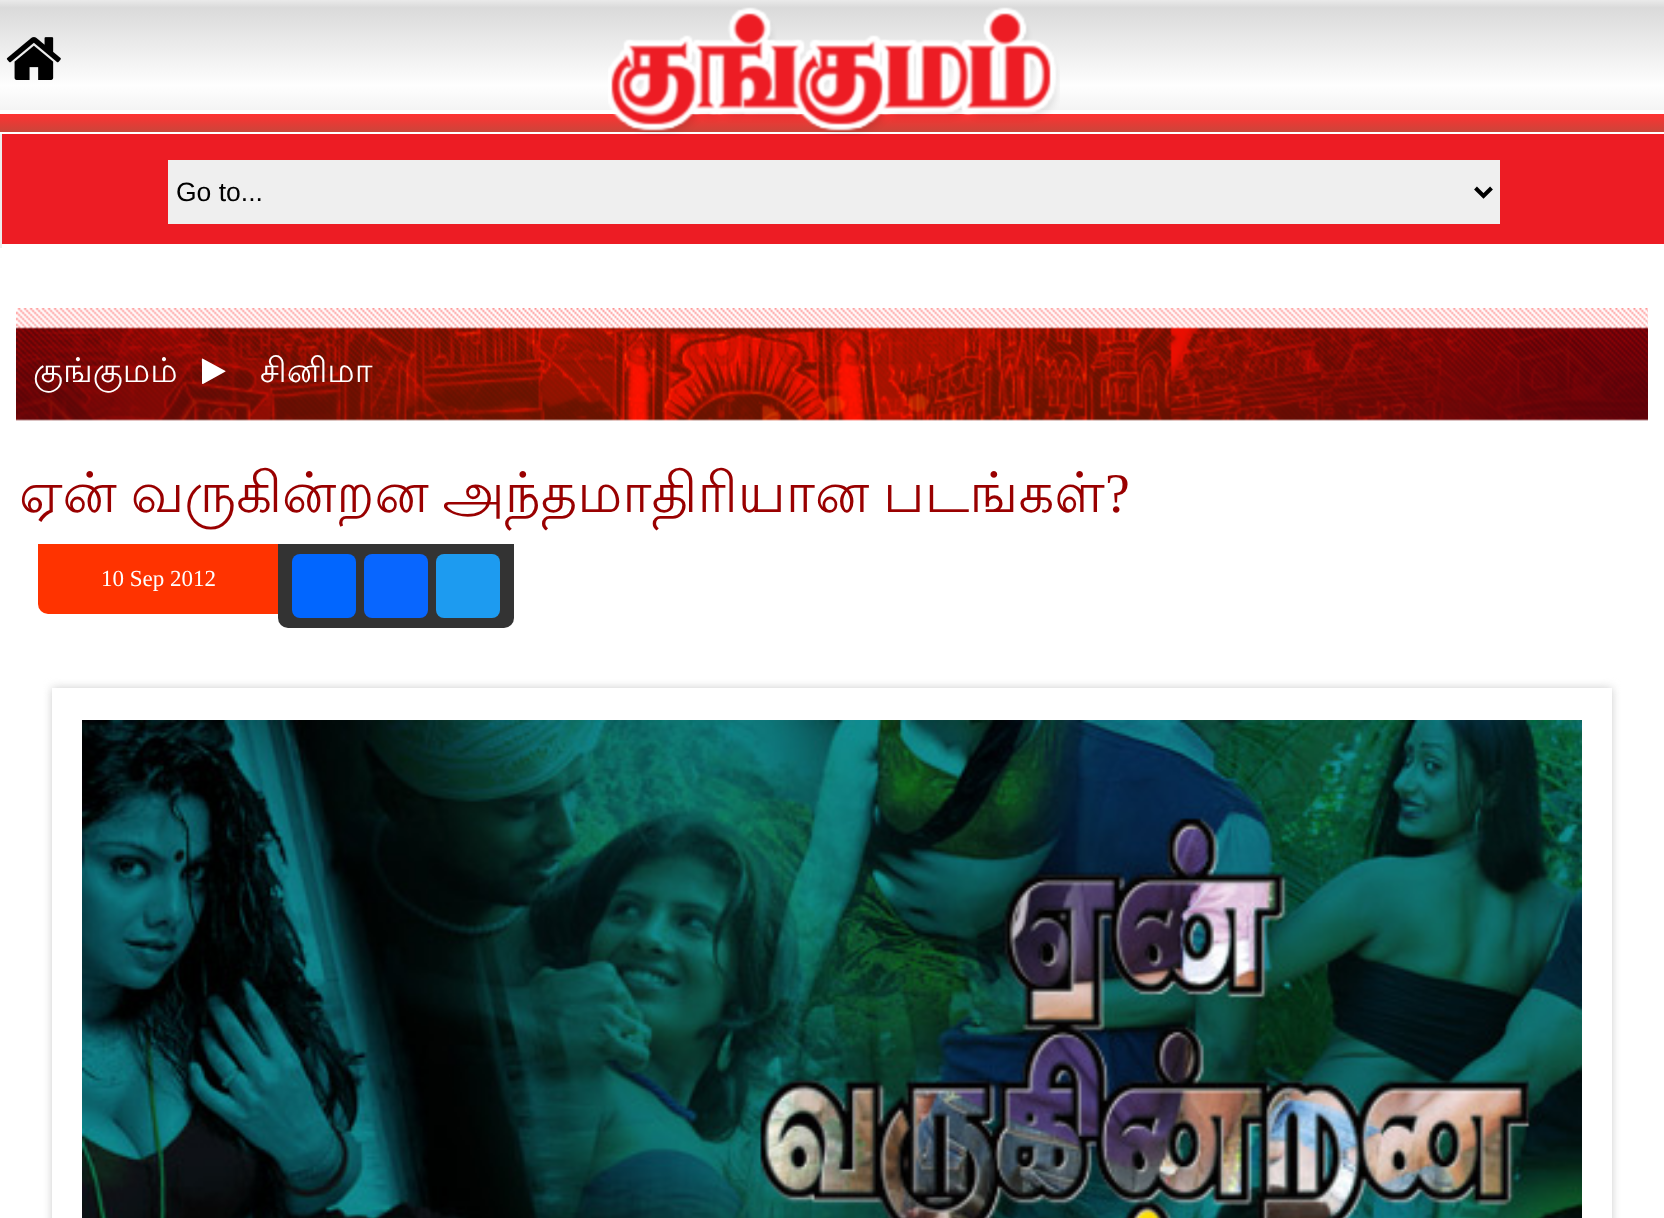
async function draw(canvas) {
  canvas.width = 1664;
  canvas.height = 1218;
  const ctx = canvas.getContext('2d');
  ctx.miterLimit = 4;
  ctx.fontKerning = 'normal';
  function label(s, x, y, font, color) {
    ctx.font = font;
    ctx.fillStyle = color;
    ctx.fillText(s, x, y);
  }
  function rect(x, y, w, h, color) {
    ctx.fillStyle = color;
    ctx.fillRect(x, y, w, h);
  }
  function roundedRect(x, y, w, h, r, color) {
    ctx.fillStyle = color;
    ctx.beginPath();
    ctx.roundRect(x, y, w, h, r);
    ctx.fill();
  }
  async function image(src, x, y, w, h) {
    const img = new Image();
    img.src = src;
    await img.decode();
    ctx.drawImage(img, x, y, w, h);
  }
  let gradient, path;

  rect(0, 0, 1664, 1218, '#fff');
  gradient = ctx.createLinearGradient(832, 0, 832, 110);
  gradient.addColorStop(0, '#eaeaea');
  gradient.addColorStop(0.07, '#dadada');
  gradient.addColorStop(0.78, '#fefefe');
  gradient.addColorStop(1, '#f4f4f4');
  ctx.fillStyle = gradient;
  ctx.fillRect(0, 0, 1664, 110);
  await image('assets/img1.png', 6, 37, 55, 43);
  gradient = ctx.createLinearGradient(832, 114, 832, 132);
  gradient.addColorStop(0, '#ff3232');
  gradient.addColorStop(1, '#cb453a');
  ctx.fillStyle = gradient;
  ctx.fillRect(0, 114, 1664, 18);
  rect(2, 134, 1662, 110, '#ed1c24');
  await image('assets/img2.png', 608, 7, 452, 129);
  rect(0, 134, 2, 114, '#ededed');
  rect(168, 160, 1332, 64, '#efefef');
  path = new Path2D('M1475.5 188L1483.5 196L1491.5 188');
  ctx.strokeStyle = '#000';
  ctx.lineWidth = 4;
  ctx.stroke(path);
  label('Go to...', 176, 201, '26.5px Liberation Sans', '#000');
  await image('assets/img3.png', 16, 308, 1632, 113);
  label('குங்குமம்', 33, 382, '34px Lohit Tamil', '#fff');
  path = new Path2D('M202 383.5V363C202 361.5 201.5 358 202.5 358.5L225.5 371V371.5L203 384H202.5Z');
  ctx.fill(path);
  label('சினிமா', 260, 382, '34px Lohit Tamil', '#fff');
  ctx.wordSpacing = '-3px';
  label('ஏன் வருகின்றன அந்தமாதிரியான படங்கள்', 19, 512, '56px Lohit Tamil', '#900');
  ctx.wordSpacing = '0px';
  label('?', 1105, 512, '56px Liberation Serif', '#900');
  ctx.fillStyle = '#f30';
  ctx.beginPath();
  ctx.roundRect(38, 544, 240, 70, [0, 0, 0, 10]);
  ctx.fill();
  label('10 Sep 2012', 101, 586, '23px Liberation Serif', '#fff');
  ctx.fillStyle = '#333';
  ctx.beginPath();
  ctx.roundRect(278, 544, 236, 84, [0, 0, 10, 10]);
  ctx.fill();
  roundedRect(292, 554, 64, 64, 8, '#0166ff');
  roundedRect(364, 554, 64, 64, 8, '#0866ff');
  roundedRect(436, 554, 64, 64, 8, '#1d9bf0');
  ctx.save();
  path = new Path2D('M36 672H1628V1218H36ZM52 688H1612V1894H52Z');
  ctx.clip(path, 'evenodd');
  ctx.fillStyle = '#ccc';
  ctx.filter = 'blur(5px)';
  ctx.beginPath();
  ctx.rect(52, 688, 1560, 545);
  ctx.fill();
  ctx.filter = 'none';
  ctx.restore();
  await image('assets/img4.png', 82, 720, 1500, 498);
}

draw(document.querySelector('canvas'));
